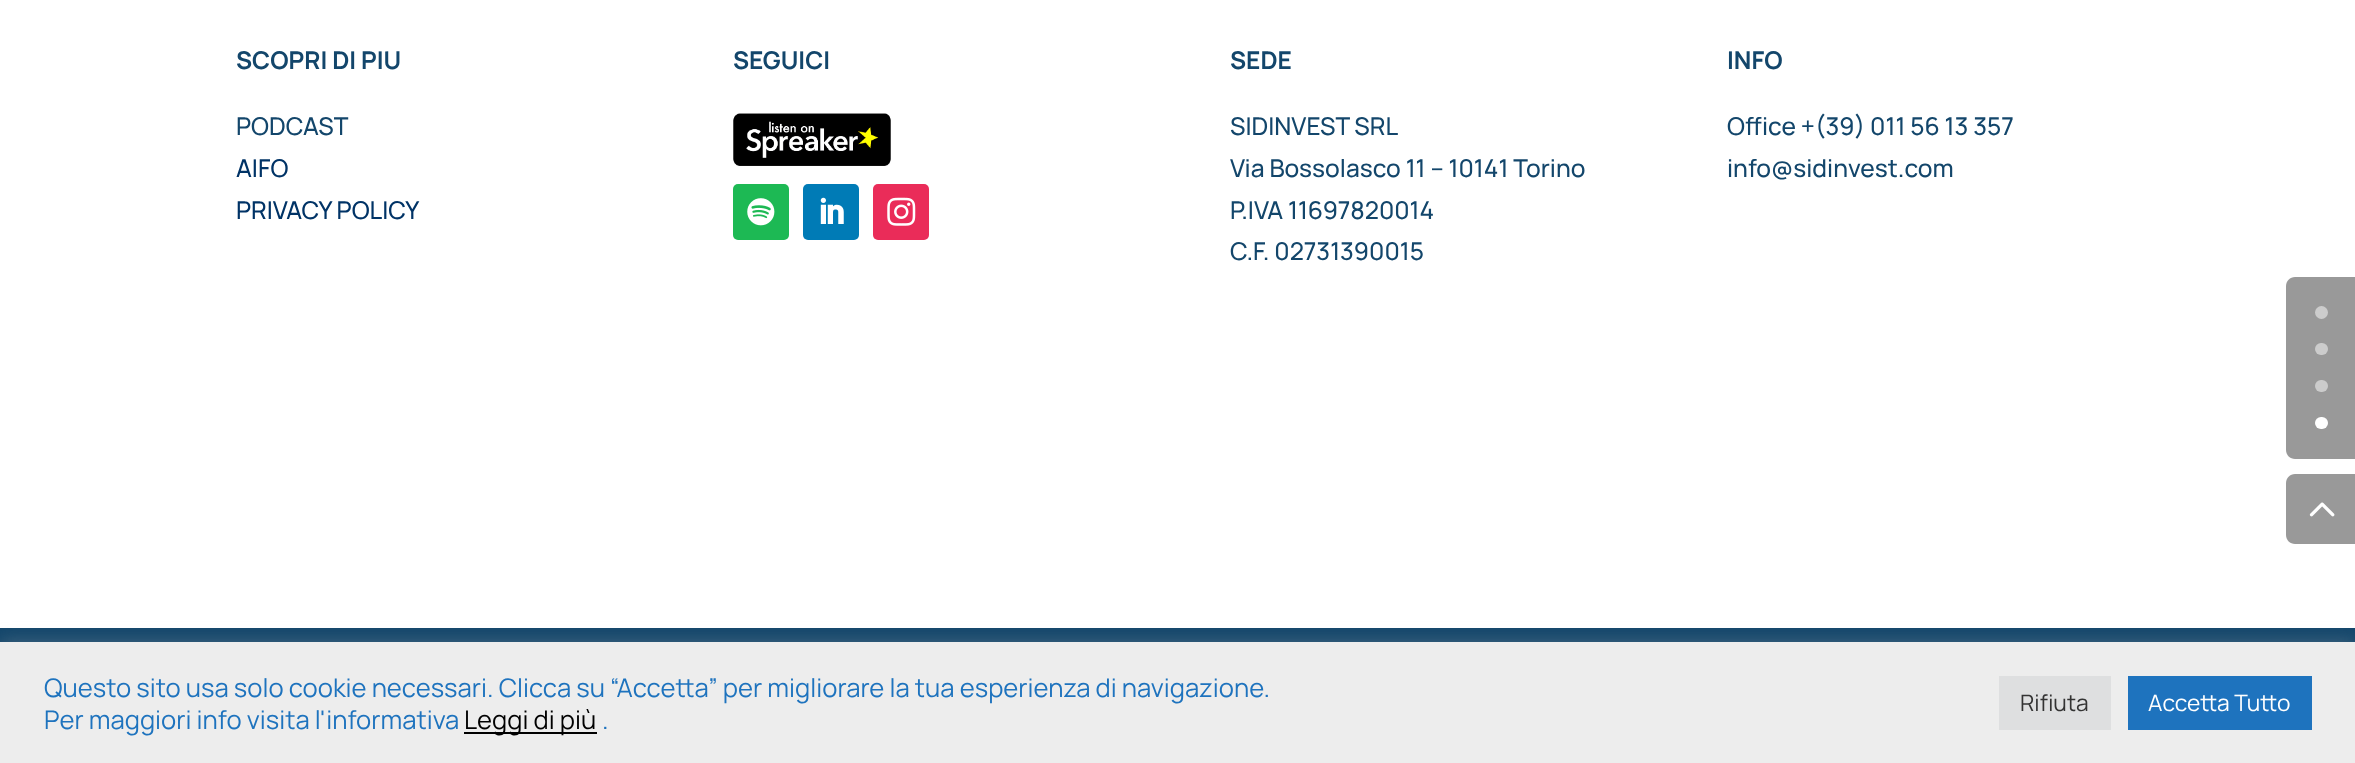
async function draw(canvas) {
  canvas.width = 2355;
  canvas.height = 763;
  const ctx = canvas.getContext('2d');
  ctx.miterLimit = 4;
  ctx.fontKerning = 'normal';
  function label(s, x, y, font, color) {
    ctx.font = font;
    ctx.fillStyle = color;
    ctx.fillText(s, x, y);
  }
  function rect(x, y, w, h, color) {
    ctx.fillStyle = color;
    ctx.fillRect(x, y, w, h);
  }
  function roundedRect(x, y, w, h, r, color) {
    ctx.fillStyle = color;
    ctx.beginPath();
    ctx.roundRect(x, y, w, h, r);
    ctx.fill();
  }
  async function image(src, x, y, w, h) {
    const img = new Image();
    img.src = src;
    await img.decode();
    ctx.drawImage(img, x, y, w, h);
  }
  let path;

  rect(0, 0, 2355, 763, '#fff');
  label('SCOPRI DI PIU', 236, 69, 'bold 24.5px Manrope', '#13466b');
  label('PODCAST', 236, 135, '500 24.5px Manrope', '#13466b');
  label('AIFO', 236, 177, '500 24.5px Manrope', '#036');
  label('PRIVACY POLICY', 236, 219, '500 24.5px Manrope', '#036');
  label('SEGUICI', 733, 69, 'bold 24.5px Manrope', '#13466b');
  await image('assets/img1.png', 733, 113, 158, 53);
  roundedRect(733, 184, 56, 56, 5, '#1db954');
  await image('assets/img2.png', 747, 198, 28, 28);
  roundedRect(803, 184, 56, 56, 5, '#007bb6');
  await image('assets/img3.png', 820, 197, 24, 27);
  roundedRect(873, 184, 56, 56, 5, '#ea2c59');
  await image('assets/img4.png', 887, 197, 29, 29);
  label('SEDE', 1230, 69, 'bold 24.5px Manrope', '#13466b');
  label('SIDINVEST SRL', 1230, 135, '500 24.5px Manrope', '#13466b');
  label('Via Bossolasco 11 – 10141 Torino', 1230, 177, '500 24.5px Manrope', '#13466b');
  label('P.IVA 11697820014', 1230, 219, '500 24.5px Manrope', '#13466b');
  label('C.F. 02731390015', 1230, 260, '500 24.5px Manrope', '#13466b');
  label('INFO', 1727, 69, 'bold 24.5px Manrope', '#13466b');
  label('Office +(39) 011 56 13 357', 1727, 135, '500 24.5px Manrope', '#13466b');
  label('info@sidinvest.com', 1727, 177, '500 24.5px Manrope', '#13466b');
  rect(0, 628, 2355, 14, '#13466b');
  ctx.fillStyle = '#999';
  path = new Path2D('M2295 277H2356V459H2295C2290 459 2286 455 2286 450V286C2286 281 2290 277 2295 277Z');
  ctx.fill(path);
  ctx.fillStyle = '#ccc';
  ctx.beginPath();
  ctx.arc(2321.5, 312.5, 6.5, 0, 2 * Math.PI);
  ctx.fill();
  roundedRect(2315, 343, 13, 12, 6, '#ccc');
  roundedRect(2315, 380, 13, 12, 6, '#ccc');
  roundedRect(2315, 417, 13, 12, 6, '#fff');
  ctx.fillStyle = '#999';
  path = new Path2D('M2295 474H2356V544H2295C2290 544 2286 540 2286 535V483C2286 478 2290 474 2295 474Z');
  ctx.fill(path);
  await image('assets/img5.png', 2309, 502, 26, 15);
  ctx.fillStyle = '#acabab4d';
  ctx.filter = 'blur(9px)';
  ctx.beginPath();
  ctx.rect(0, 641, 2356, 120);
  ctx.fill();
  ctx.filter = 'none';
  rect(0, 642, 2355, 121, '#ededed');
  label('Questo sito usa solo cookie necessari. Clicca su “Accetta” per migliorare la tua esperienza di navigazione.', 44, 697, '25.65px Manrope', '#1e73be');
  label('Per maggiori info visita l\'informativa', 44, 729, '25.65px Manrope', '#1e73be');
  rect(464, 732, 133, 2, '#000');
  label('Leggi di più', 464, 729, '25.65px Manrope', '#000');
  label('.', 602, 729, '25.65px Manrope', '#1e73be');
  rect(1999, 676, 112, 54, '#dedfe0');
  label('Rifiuta', 2020, 711, '22.75px Manrope', '#333');
  rect(2128, 676, 184, 54, '#1e73be');
  label('Accetta Tutto', 2148, 711, '22.75px Manrope', '#fff');
}

draw(document.querySelector('canvas'));
